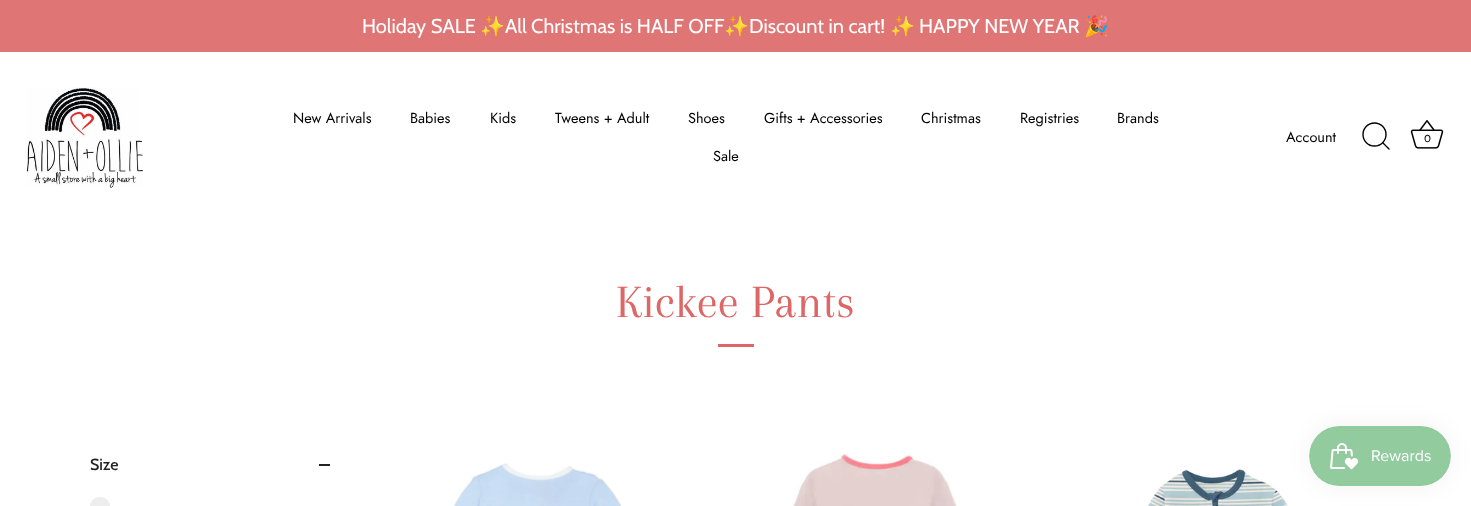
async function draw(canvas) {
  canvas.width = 1471;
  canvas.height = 506;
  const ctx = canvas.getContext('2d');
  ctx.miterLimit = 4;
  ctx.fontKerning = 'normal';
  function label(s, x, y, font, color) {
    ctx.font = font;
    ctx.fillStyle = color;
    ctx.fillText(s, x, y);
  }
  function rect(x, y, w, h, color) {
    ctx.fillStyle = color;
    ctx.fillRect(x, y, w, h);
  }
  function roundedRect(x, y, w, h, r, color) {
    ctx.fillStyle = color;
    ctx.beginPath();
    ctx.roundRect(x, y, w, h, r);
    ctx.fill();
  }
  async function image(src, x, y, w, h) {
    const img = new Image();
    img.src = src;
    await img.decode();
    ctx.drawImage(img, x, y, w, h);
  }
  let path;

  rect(0, 0, 1471, 506, '#fff');
  rect(0, 0, 1471, 52, '#e07575');
  label('Holiday SALE', 362, 33, '20px Cabin', '#fff');
  label('✨', 480, 33, '20px Noto Color Emoji', '#fff');
  label('All Christmas is HALF OFF', 505, 33, '20px Cabin', '#fff');
  label('✨', 724, 33, '20px Noto Color Emoji', '#fff');
  label('Discount in cart!', 749, 33, '20px Cabin', '#fff');
  label('✨', 890, 33, '20px Noto Color Emoji', '#fff');
  label('HAPPY NEW YEAR', 919, 33, '20px Cabin', '#fff');
  label('🎉', 1084, 33, '20px Noto Color Emoji', '#fff');
  await image('assets/img1.png', 26, 87, 117, 101);
  label('New Arrivals', 293, 123, '14.5px Jost', '#000');
  label('Babies', 410, 123, '14.5px Jost', '#000');
  label('Kids', 490, 123, '14.5px Jost', '#000');
  label('Tweens + Adult', 555, 123, '14.5px Jost', '#000');
  label('Shoes', 688, 123, '14.5px Jost', '#000');
  label('Gifts + Accessories', 764, 123, '14.5px Jost', '#000');
  label('Christmas', 921, 123, '14.5px Jost', '#000');
  label('Registries', 1020, 123, '14.5px Jost', '#000');
  label('Brands', 1117, 123, '14.5px Jost', '#000');
  label('Sale', 713, 161, '14.5px Jost', '#000');
  label('Account', 1286, 142, '14.5px Jost', '#000');
  ctx.beginPath();
  ctx.arc(1374.5, 134.5, 11.5, 0, 2 * Math.PI);
  ctx.strokeStyle = '#000';
  ctx.lineWidth = 1.4;
  ctx.stroke();
  path = new Path2D('M1389 149L1383 143');
  ctx.lineCap = 'round';
  ctx.lineJoin = 'round';
  ctx.stroke(path);
  await image('assets/img2.png', 1410, 120, 34, 29);
  label('0', 1424, 142, '10px Cabin', '#000');
  label('Kickee Pants', 616, 317, '48px Arapey', '#d66');
  rect(718, 344, 36, 3, '#d66');
  label('Size', 90, 470, '500 16px Cabin', '#232323');
  rect(319, 464, 11, 2, '#232323');
  roundedRect(90, 497, 20, 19, 10, '#eee');
  await image('assets/img3.png', 454, 463, 168, 43);
  await image('assets/img4.png', 792, 454, 165, 52);
  await image('assets/img5.png', 1146, 469, 142, 37);
  ctx.fillStyle = '#0000000d';
  ctx.filter = 'blur(12.5px)';
  ctx.beginPath();
  ctx.roundRect(1309, 426, 142, 60, 30);
  ctx.fill();
  ctx.filter = 'none';
  await image('assets/img6.png', 1309, 426, 142, 60);
}

draw(document.querySelector('canvas'));
